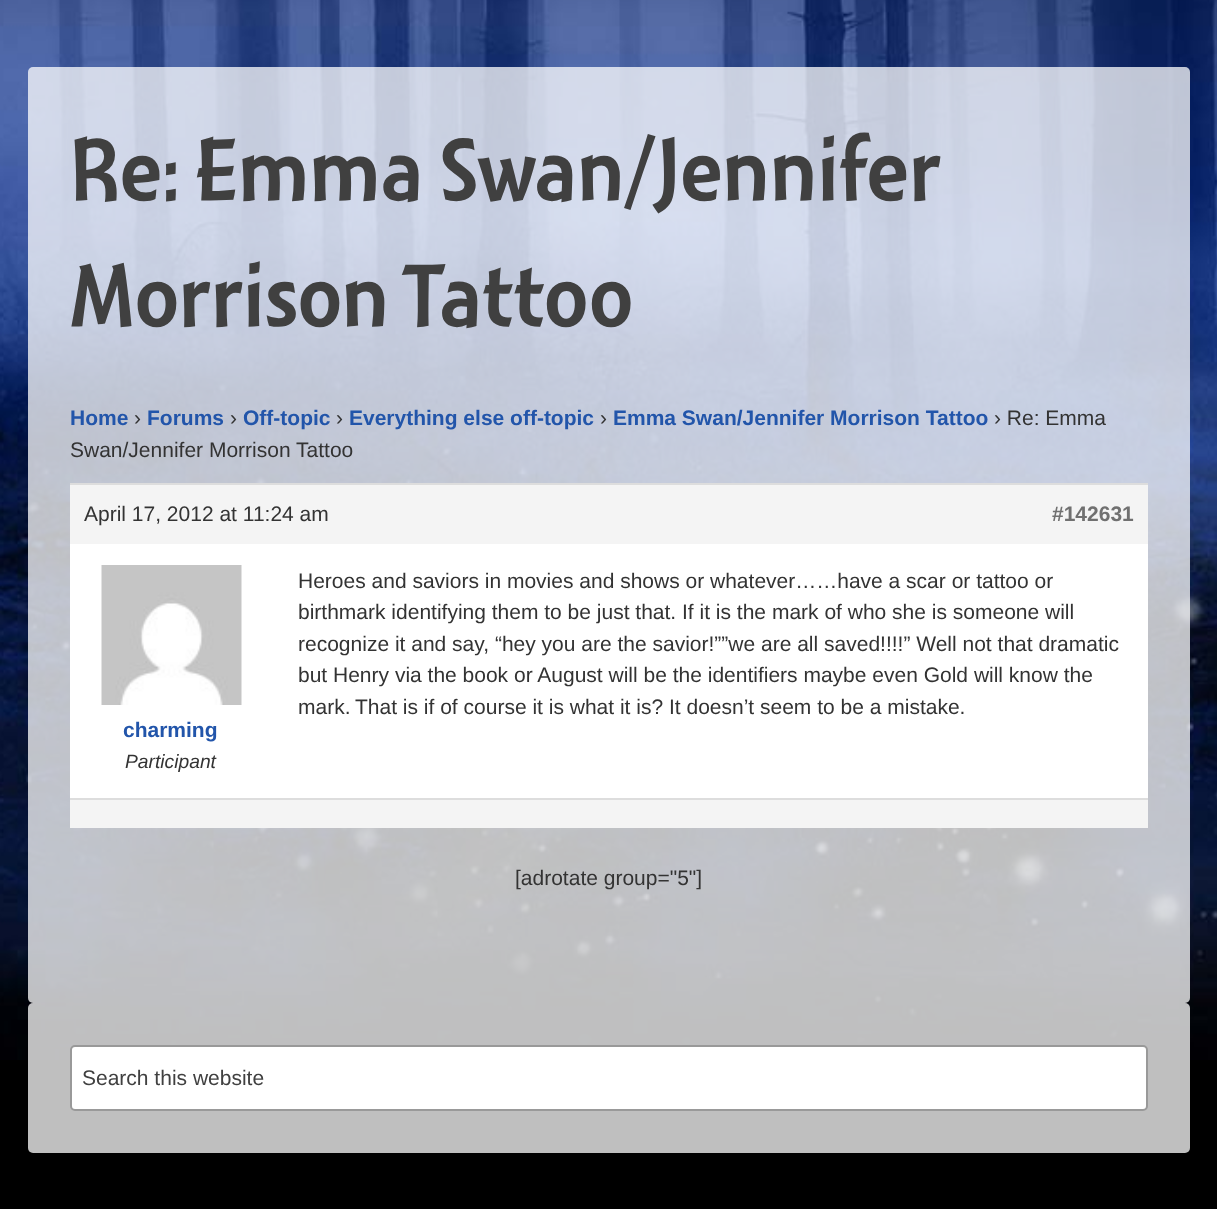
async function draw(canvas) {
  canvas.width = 1217;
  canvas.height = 1209;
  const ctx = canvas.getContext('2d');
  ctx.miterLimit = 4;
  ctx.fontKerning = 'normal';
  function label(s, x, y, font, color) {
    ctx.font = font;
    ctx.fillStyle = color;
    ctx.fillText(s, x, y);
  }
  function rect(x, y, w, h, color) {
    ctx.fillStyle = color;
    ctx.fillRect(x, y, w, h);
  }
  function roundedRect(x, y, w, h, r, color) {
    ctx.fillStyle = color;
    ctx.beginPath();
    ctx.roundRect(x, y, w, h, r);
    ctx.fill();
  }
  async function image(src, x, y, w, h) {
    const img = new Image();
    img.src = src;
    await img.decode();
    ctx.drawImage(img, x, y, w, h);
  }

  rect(0, 0, 1217, 1209, '#000');
  await image('assets/img1.png', 0, 0, 1217, 1060);
  roundedRect(28, 67, 1162, 936, 5, '#ffffffbf');
  label('Re: Emma Swan/Jennifer', 70, 200, '92.75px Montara', '#404040');
  label('Morrison Tattoo', 70, 326, '92.75px Montara', '#404040');
  label('Home', 70, 425, 'bold 21px Liberation Sans', '#25a');
  label('›', 134, 425, '21px Liberation Sans', '#333');
  label('Forums', 147, 425, 'bold 21px Liberation Sans', '#25a');
  label('›', 230, 425, '21px Liberation Sans', '#333');
  label('Off-topic', 243, 425, 'bold 21px Liberation Sans', '#25a');
  label('›', 336, 425, '21px Liberation Sans', '#333');
  label('Everything else off-topic', 349, 425, 'bold 21px Liberation Sans', '#25a');
  label('›', 600, 425, '21px Liberation Sans', '#333');
  label('Emma Swan/Jennifer Morrison Tattoo', 613, 425, 'bold 21px Liberation Sans', '#25a');
  label('› Re: Emma', 994, 425, '21px Liberation Sans', '#333');
  label('Swan/Jennifer Morrison Tattoo', 70, 457, '21px Liberation Sans', '#333');
  rect(70, 485, 1078, 59, '#f4f4f4');
  rect(70, 483, 1078, 2, '#ddd');
  label('April 17, 2012 at 11:24 am', 84, 521, '21px Liberation Sans', '#333');
  label('#142631', 1052, 521, 'bold 21px Liberation Sans', '#707070');
  rect(70, 544, 1078, 254, '#fff');
  label('Heroes and saviors in movies and shows or whatever……have a scar or tattoo or', 298, 588, '21px Liberation Sans', '#333');
  label('birthmark identifying them to be just that. If it is the mark of who she is someone will', 298, 619, '21px Liberation Sans', '#333');
  label('recognize it and say, “hey you are the savior!””we are all saved!!!!” Well not that dramatic', 298, 651, '21px Liberation Sans', '#333');
  label('but Henry via the book or August will be the identifiers maybe even Gold will know the', 298, 682, '21px Liberation Sans', '#333');
  label('mark.', 298, 714, '21px Liberation Sans', '#333');
  label('That is if of course it is what it is? It doesn’t seem to be a mistake.', 355, 714, '21px Liberation Sans', '#333');
  await image('assets/img2.png', 101, 565, 141, 140);
  label('charming', 123, 737, 'bold 21px Liberation Sans', '#25a');
  label('Participant', 125, 768, 'italic 19.25px Liberation Sans', '#333');
  rect(70, 800, 1078, 28, '#f4f4f4');
  rect(70, 798, 1078, 2, '#ddd');
  label('[adrotate group="5"]', 515, 885, '21px Liberation Sans', '#333');
  roundedRect(28, 1003, 1162, 150, 5, '#ffffffbf');
  ctx.fillStyle = '#fff';
  ctx.beginPath();
  ctx.roundRect(71, 1046, 1076, 64, 4);
  ctx.fill();
  ctx.strokeStyle = '#999';
  ctx.lineWidth = 2;
  ctx.stroke();
  label('Search this website', 82, 1085, '21px Liberation Sans', '#404040');
}

draw(document.querySelector('canvas'));
